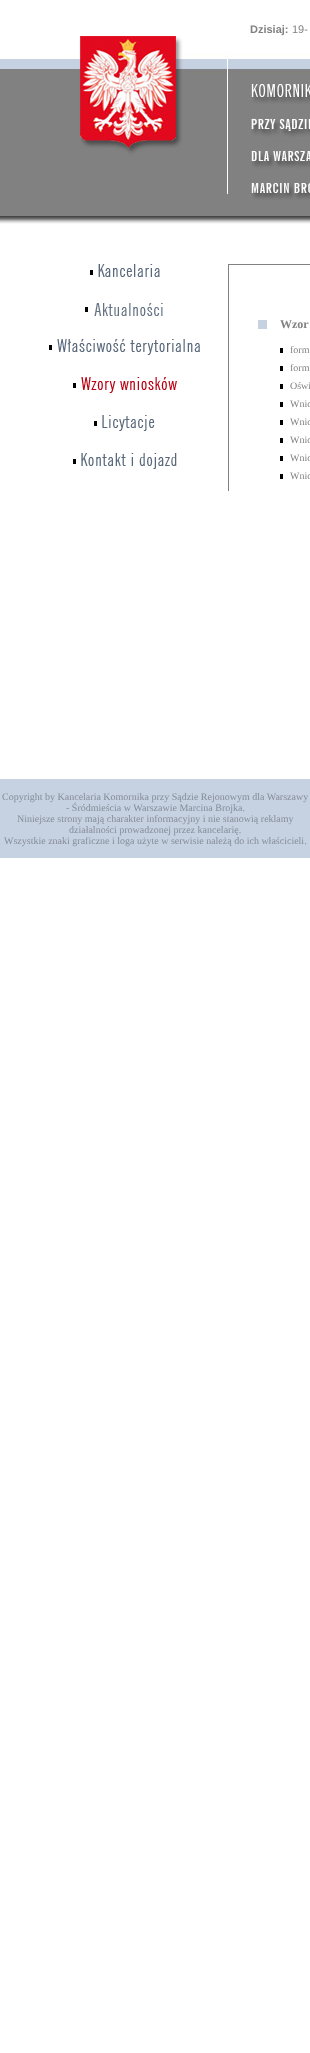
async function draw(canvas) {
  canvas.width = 310;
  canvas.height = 2053;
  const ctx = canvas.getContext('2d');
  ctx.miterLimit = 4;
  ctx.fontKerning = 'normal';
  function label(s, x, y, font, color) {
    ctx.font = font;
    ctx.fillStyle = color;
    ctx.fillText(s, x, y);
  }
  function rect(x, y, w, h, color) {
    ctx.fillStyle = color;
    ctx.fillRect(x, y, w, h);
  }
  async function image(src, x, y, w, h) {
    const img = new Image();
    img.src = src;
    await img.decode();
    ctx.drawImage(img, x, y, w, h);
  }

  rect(0, 0, 310, 2053, '#fff');
  await image('assets/img1.png', 0, 59, 310, 165);
  await image('assets/img2.png', 72, 36, 238, 164);
  label('Dzisiaj:', 250, 33, 'bold 11px Liberation Sans', '#818181');
  label('19-', 292, 33, '11px Liberation Sans', '#818181');
  rect(228, 264, 82, 1, '#818181');
  rect(228, 264, 1, 227, '#818181');
  rect(90, 270, 3, 5, '#000');
  await image('assets/img3.png', 98, 264, 62, 13);
  rect(85, 307, 3, 5, '#000');
  await image('assets/img4.png', 94, 303, 69, 13);
  rect(49, 345, 3, 5, '#000');
  await image('assets/img5.png', 57, 339, 143, 16);
  rect(73, 383, 3, 5, '#000');
  await image('assets/img6.png', 81, 377, 96, 16);
  rect(94, 421, 3, 5, '#000');
  await image('assets/img7.png', 102, 415, 53, 16);
  rect(73, 459, 3, 5, '#000');
  await image('assets/img8.png', 81, 453, 96, 16);
  rect(258, 320, 9, 9, '#c6d1e1');
  label('Wzor', 280, 328, 'bold 12px Liberation Serif', '#818181');
  label('form', 290, 353, '10px Liberation Serif', '#818181');
  rect(280, 348, 3, 5, '#000');
  label('form', 290, 371, '10px Liberation Serif', '#818181');
  rect(280, 366, 3, 5, '#000');
  label('Oświ', 290, 389, '10px Liberation Serif', '#818181');
  rect(280, 384, 3, 5, '#000');
  label('Wnio', 290, 407, '10px Liberation Serif', '#818181');
  rect(280, 402, 3, 5, '#000');
  label('Wnio', 290, 425, '10px Liberation Serif', '#818181');
  rect(280, 420, 3, 5, '#000');
  label('Wnio', 290, 443, '10px Liberation Serif', '#818181');
  rect(280, 438, 3, 5, '#000');
  label('Wnio', 290, 461, '10px Liberation Serif', '#818181');
  rect(280, 456, 3, 5, '#000');
  label('Wnio', 290, 479, '10px Liberation Serif', '#818181');
  rect(280, 474, 3, 5, '#000');
  rect(0, 779, 310, 79, '#c6d1e1');
  label('Copyright by Kancelaria Komornika przy Sądzie Rejonowym dla Warszawy', 2, 800, '10px Liberation Serif', '#858d99');
  label('- Śródmieścia w Warszawie Marcina Brojka.', 66, 811, '10px Liberation Serif', '#858d99');
  label('Niniejsze strony mają charakter informacyjny i nie stanowią reklamy', 17, 822, '10px Liberation Serif', '#858d99');
  label('działalności prowadzonej przez kancelarię.', 69, 833, '10px Liberation Serif', '#858d99');
  label('Wszystkie znaki graficzne i loga użyte w serwisie należą do ich właścicieli.', 4, 844, '10px Liberation Serif', '#858d99');
}

draw(document.querySelector('canvas'));
